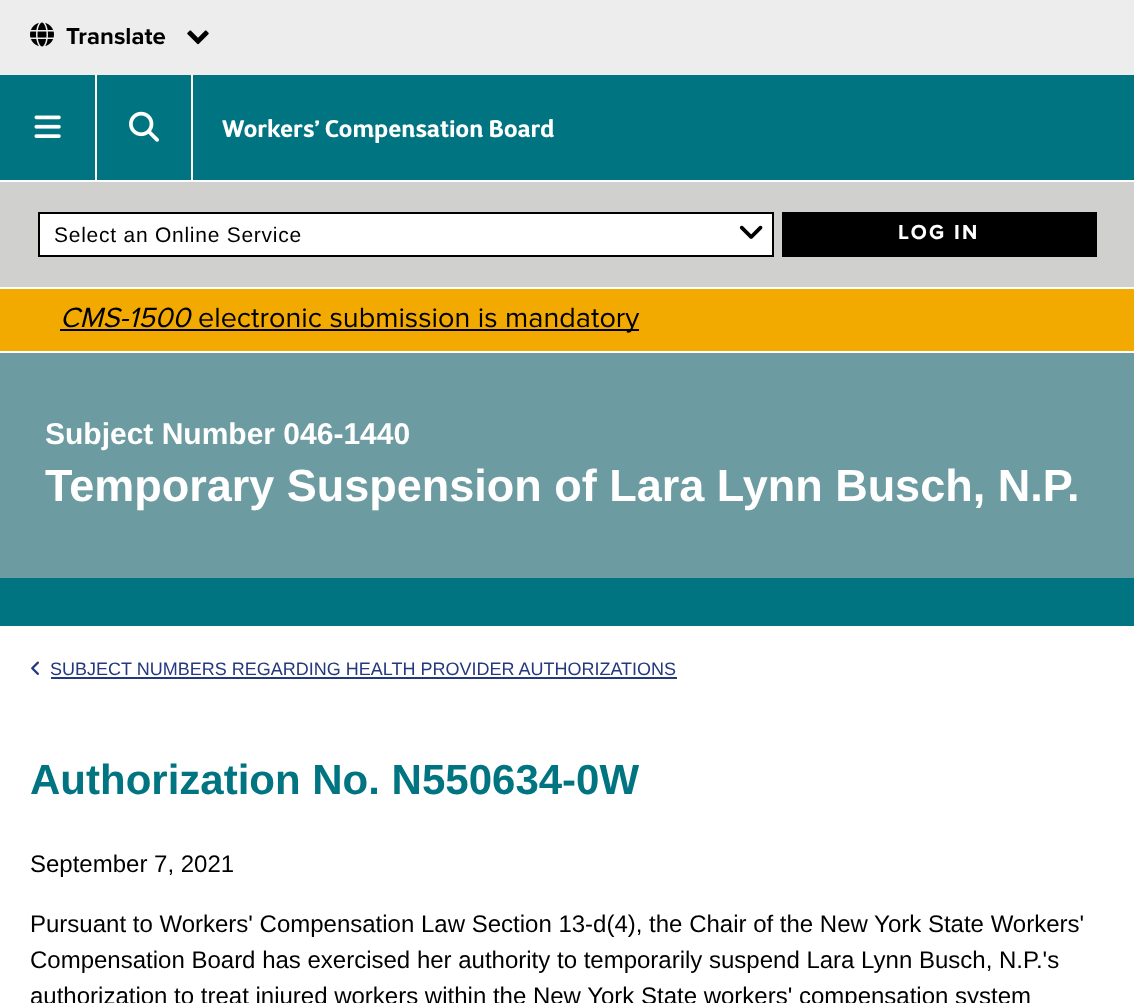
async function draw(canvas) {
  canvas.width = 1134;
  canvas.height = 1003;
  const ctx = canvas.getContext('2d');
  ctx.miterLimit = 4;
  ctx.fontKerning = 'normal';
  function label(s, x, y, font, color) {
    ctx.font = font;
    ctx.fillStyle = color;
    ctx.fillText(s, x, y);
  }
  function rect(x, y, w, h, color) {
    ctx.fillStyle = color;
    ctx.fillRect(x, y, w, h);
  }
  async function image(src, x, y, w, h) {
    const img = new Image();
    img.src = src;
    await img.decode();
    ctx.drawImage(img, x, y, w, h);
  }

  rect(0, 0, 1134, 1003, '#fff');
  rect(0, 0, 1134, 75, '#ededed');
  await image('assets/img1.png', 30, 22, 24, 25);
  label('Translate', 66, 44, 'bold 24px Proxima Nova', '#000');
  await image('assets/img2.png', 187, 30, 22, 15);
  rect(0, 75, 1134, 105, '#007481');
  rect(95, 75, 2, 105, '#fff');
  await image('assets/img3.png', 34, 115, 27, 23);
  rect(191, 75, 2, 105, '#fff');
  await image('assets/img4.png', 129, 111, 30, 31);
  ctx.letterSpacing = '0.4px';
  label('Workers’ Compensation Board', 222, 137, '600 24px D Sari', '#fff');
  rect(0, 182, 1134, 105, '#d0d0ce');
  ctx.fillStyle = '#fff';
  ctx.beginPath();
  ctx.rect(39, 213, 734, 43);
  ctx.fill();
  ctx.strokeStyle = '#000';
  ctx.lineWidth = 2;
  ctx.stroke();
  ctx.letterSpacing = '0.75px';
  label('Select an Online Service', 54, 242, '21px Liberation Sans', '#000');
  await image('assets/img5.png', 739, 225, 24, 14);
  rect(782, 212, 315, 45, '#000');
  ctx.letterSpacing = '2.25px';
  label('LOG IN', 898, 239, 'bold 21px Proxima Nova', '#fff');
  rect(0, 289, 1134, 62, '#f2a900');
  ctx.letterSpacing = '0px';
  label('CMS-1500', 60, 327, 'italic 28.75px Proxima Nova', '#000');
  rect(60, 329, 579, 2, '#000');
  label('electronic submission is mandatory', 198, 327, '28.75px Proxima Nova', '#000');
  rect(0, 353, 1134, 225, '#6c9ca1');
  rect(0, 578, 1134, 48, '#007481');
  label('Subject Number 046-1440', 45, 444, 'bold 30px Liberation Sans', '#fff');
  label('Temporary Suspension of Lara Lynn Busch, N.P.', 45, 501, 'bold 45px Liberation Sans', '#fff');
  await image('assets/img6.png', 31, 661, 8, 14);
  label('SUBJECT NUMBERS REGARDING HEALTH PROVIDER AUTHORIZATIONS', 50, 675, '18px Liberation Sans', '#24387e');
  rect(51, 677, 626, 2, '#24387e');
  label('Authorization No. N550634-0W', 30, 794, 'bold 42px Liberation Sans', '#007481');
  label('September 7, 2021', 30, 872, '24px Liberation Sans', '#000');
  label('Pursuant to Workers\' Compensation Law Section 13-d(4), the Chair of the New York State Workers\'', 30, 932, '24px Liberation Sans', '#000');
  label('Compensation Board has exercised her authority to temporarily suspend Lara Lynn Busch, N.P.\'s', 30, 968, '24px Liberation Sans', '#000');
  label('authorization to treat injured workers within the New York State workers\' compensation system', 30, 1004, '24px Liberation Sans', '#000');
}

draw(document.querySelector('canvas'));
